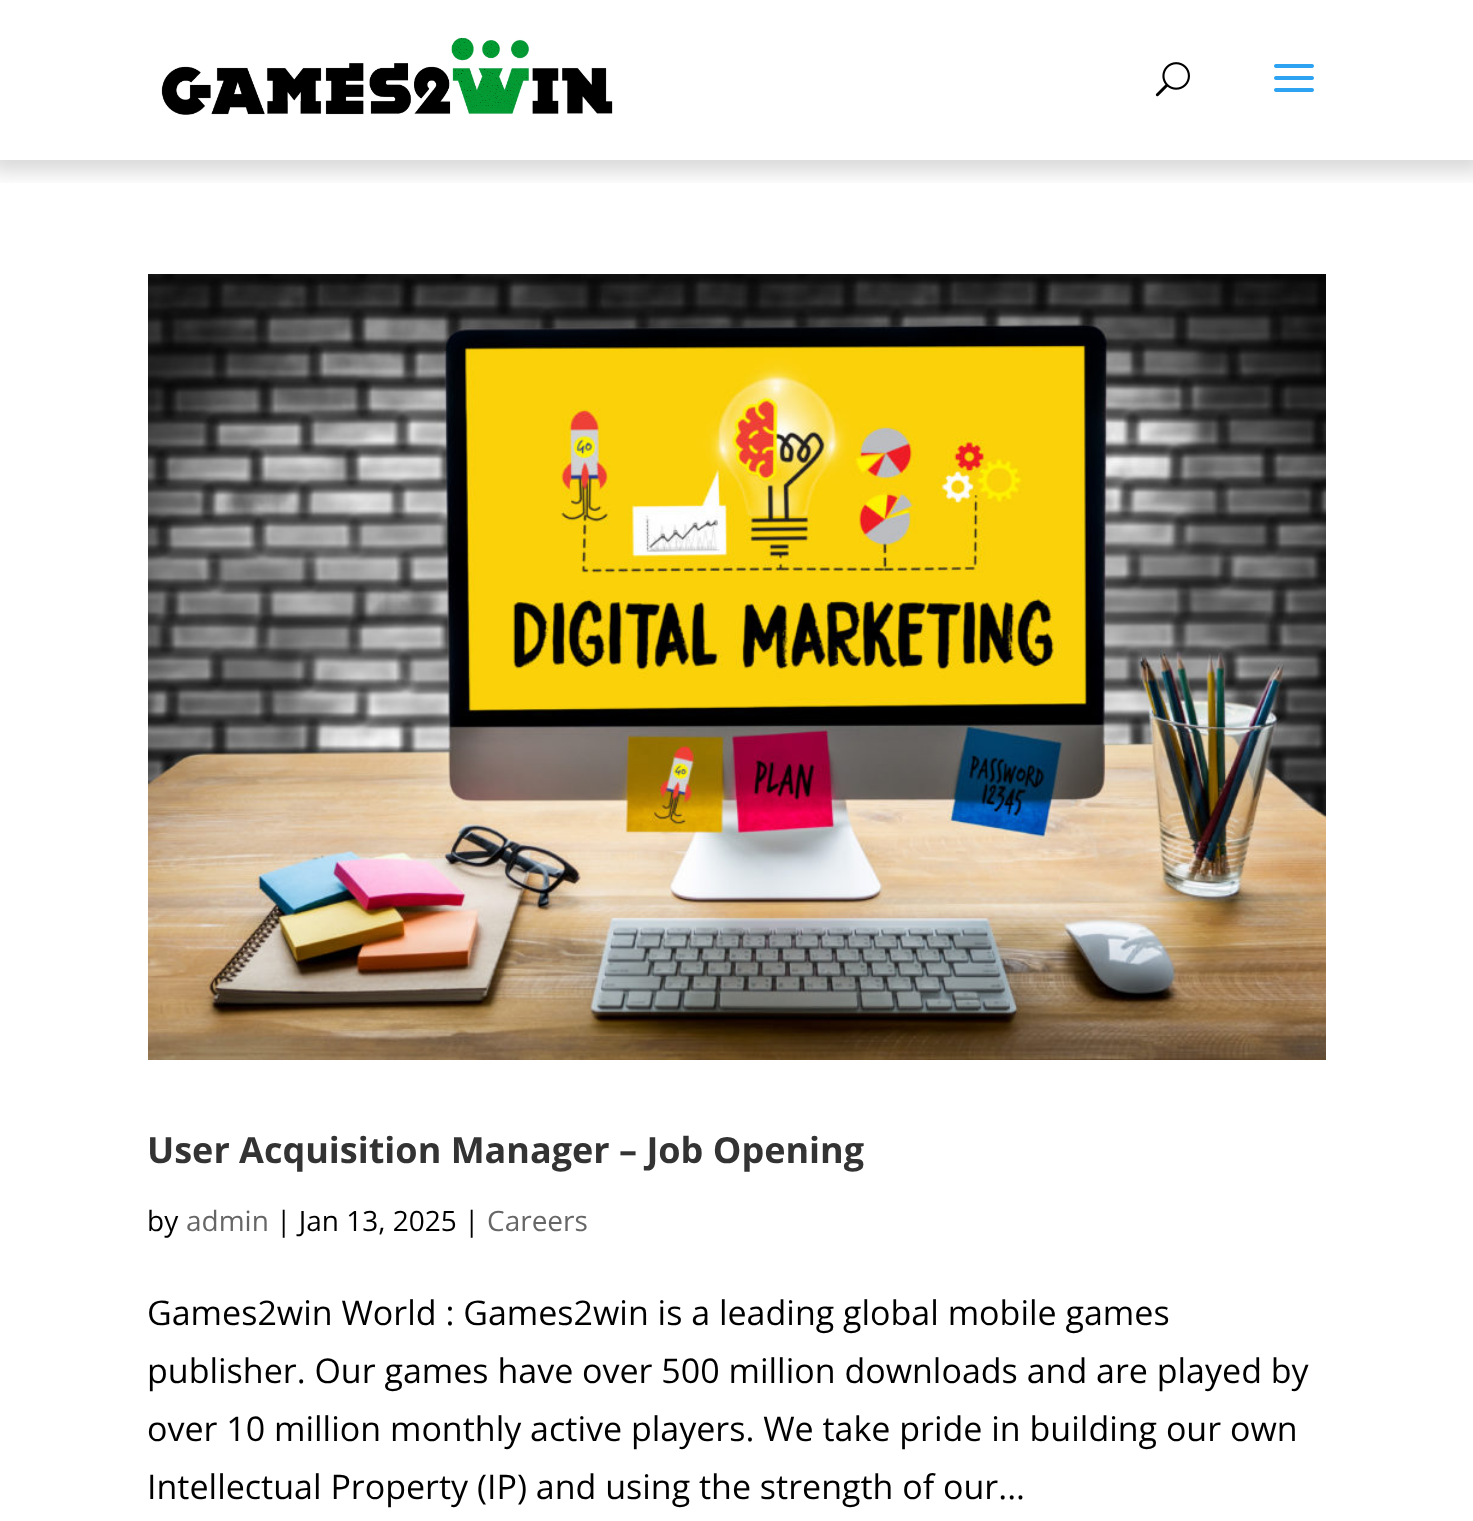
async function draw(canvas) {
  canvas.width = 1473;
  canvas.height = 1521;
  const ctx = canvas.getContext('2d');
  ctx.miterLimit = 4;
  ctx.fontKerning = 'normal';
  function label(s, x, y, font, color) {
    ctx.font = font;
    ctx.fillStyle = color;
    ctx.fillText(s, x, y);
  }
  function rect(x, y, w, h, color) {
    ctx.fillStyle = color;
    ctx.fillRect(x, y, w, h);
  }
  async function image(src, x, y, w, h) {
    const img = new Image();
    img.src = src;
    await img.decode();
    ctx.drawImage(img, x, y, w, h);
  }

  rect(0, 0, 1473, 1521, '#fff');
  ctx.save();
  ctx.beginPath();
  ctx.rect(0, 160, 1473, 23);
  ctx.clip();
  ctx.fillStyle = '#00000026';
  ctx.filter = 'blur(10px)';
  ctx.beginPath();
  ctx.rect(-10, -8, 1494, 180);
  ctx.fill();
  ctx.filter = 'none';
  ctx.restore();
  await image('assets/img1.png', 161, 37, 452, 78);
  await image('assets/img2.png', 1155, 62, 35, 35);
  await image('assets/img3.png', 1274, 64, 40, 28);
  await image('assets/img4.png', 148, 274, 1178, 786);
  label('User Acquisition Manager – Job Opening', 147, 1163, 'bold 36px Open Sans', '#333');
  label('by', 147, 1231, '28px Open Sans', '#000');
  label('admin', 186, 1231, '28px Open Sans', '#666');
  label('| Jan 13, 2025 |', 276, 1231, '28px Open Sans', '#000');
  label('Careers', 487, 1231, '28px Open Sans', '#666');
  label('Games2win World : Games2win is a leading global mobile games', 147, 1325, '34px Open Sans', '#000');
  label('publisher. Our games have over 500 million downloads and are played by', 147, 1383, '34px Open Sans', '#000');
  label('over 10 million monthly active players. We take pride in building our own', 147, 1441, '34px Open Sans', '#000');
  label('Intellectual Property (IP) and using the strength of our...', 147, 1499, '34px Open Sans', '#000');
}

draw(document.querySelector('canvas'));
